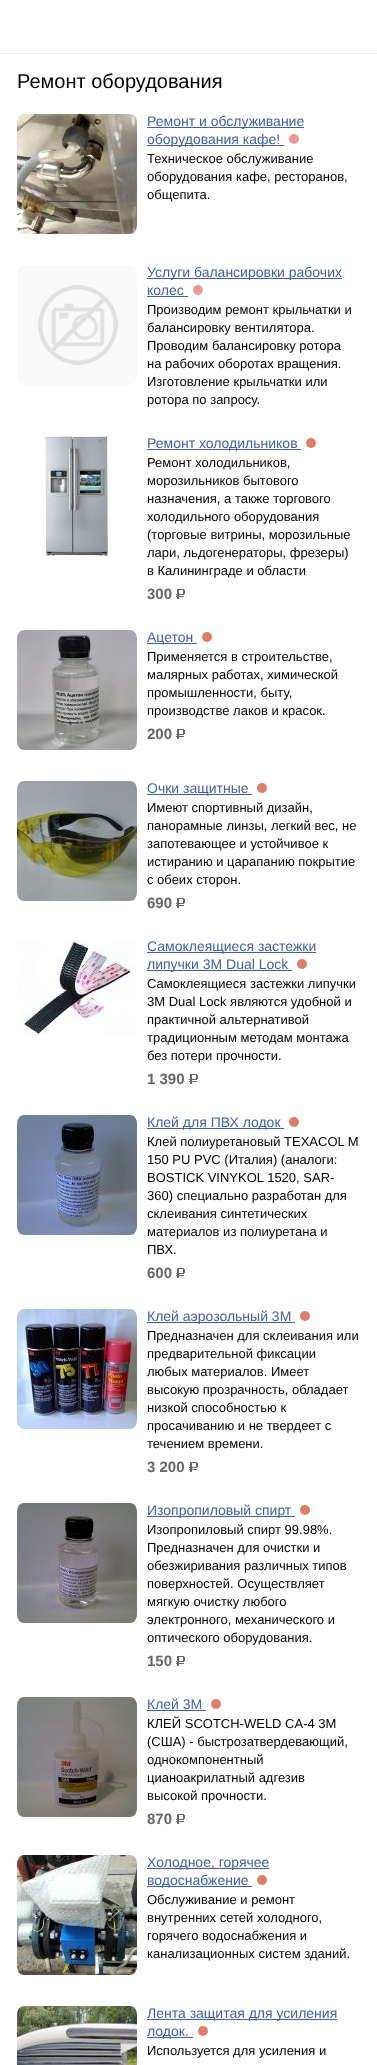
async function draw(canvas) {
  canvas.width = 377;
  canvas.height = 2065;
  const ctx = canvas.getContext('2d');
  ctx.miterLimit = 4;
  ctx.fontKerning = 'normal';
  function label(s, x, y, font, color) {
    ctx.font = font;
    ctx.fillStyle = color;
    ctx.fillText(s, x, y);
  }
  function rect(x, y, w, h, color) {
    ctx.fillStyle = color;
    ctx.fillRect(x, y, w, h);
  }
  async function image(src, x, y, w, h) {
    const img = new Image();
    img.src = src;
    await img.decode();
    ctx.drawImage(img, x, y, w, h);
  }

  rect(0, 0, 377, 2065, '#fff');
  rect(0, 53, 377, 1, '#eee');
  label('Ремонт оборудования', 17, 88, '20px Liberation Sans', '#000');
  await image('assets/img1.png', 17, 114, 120, 120);
  await image('assets/img2.png', 17, 114, 120, 120);
  rect(147, 127, 157, 1, '#3f5fa6');
  label('Ремонт и обслуживание', 147, 126, '14px Liberation Sans', '#3f5fa6');
  rect(147, 145, 137, 1, '#3f5fa6');
  label('оборудования кафе!', 147, 144, '14px Liberation Sans', '#3f5fa6');
  ctx.fillStyle = '#ea9999';
  ctx.beginPath();
  ctx.arc(294, 139, 5, 0, 2 * Math.PI);
  ctx.fill();
  label('Техническое обслуживание', 147, 163, '13px Liberation Sans', '#000');
  label('оборудования кафе, ресторанов,', 147, 181, '13px Liberation Sans', '#000');
  label('общепита.', 147, 199, '13px Liberation Sans', '#000');
  await image('assets/img3.png', 17, 265, 120, 120);
  rect(147, 278, 195, 1, '#3f5fa6');
  label('Услуги балансировки рабочих', 147, 277, '14px Liberation Sans', '#3f5fa6');
  label('колес', 147, 295, '14px Liberation Sans', '#3f5fa6');
  rect(147, 296, 41, 1, '#3f5fa6');
  ctx.fillStyle = '#ea9999';
  ctx.beginPath();
  ctx.arc(198, 290, 5, 0, 2 * Math.PI);
  ctx.fill();
  label('Производим ремонт крыльчатки и', 147, 314, '13px Liberation Sans', '#000');
  label('балансировку вентилятора.', 147, 332, '13px Liberation Sans', '#000');
  label('Проводим балансировку ротора', 147, 350, '13px Liberation Sans', '#000');
  label('на рабочих оборотах вращения.', 147, 368, '13px Liberation Sans', '#000');
  label('Изготовление крыльчатки или', 147, 386, '13px Liberation Sans', '#000');
  label('ротора по запросу.', 147, 404, '13px Liberation Sans', '#000');
  await image('assets/img4.png', 41, 436, 72, 120);
  rect(147, 449, 154, 1, '#3f5fa6');
  label('Ремонт холодильников', 147, 448, '14px Liberation Sans', '#3f5fa6');
  ctx.fillStyle = '#dd7e6b';
  ctx.beginPath();
  ctx.arc(311, 443, 5, 0, 2 * Math.PI);
  ctx.fill();
  label('Ремонт холодильников,', 147, 467, '13px Liberation Sans', '#000');
  label('морозильников бытового', 147, 485, '13px Liberation Sans', '#000');
  label('назначения, а также торгового', 147, 503, '13px Liberation Sans', '#000');
  label('холодильного оборудования', 147, 521, '13px Liberation Sans', '#000');
  label('(торговые витрины, морозильные', 147, 539, '13px Liberation Sans', '#000');
  label('лари, льдогенераторы, фрезеры)', 147, 557, '13px Liberation Sans', '#000');
  label('в Калининграде и области', 147, 575, '13px Liberation Sans', '#000');
  label('300', 147, 599, 'bold 15px Liberation Sans', '#666');
  await image('assets/img5.png', 176, 589, 9, 10);
  await image('assets/img6.png', 17, 630, 120, 120);
  await image('assets/img7.png', 17, 630, 120, 120);
  rect(147, 643, 50, 1, '#3f5fa6');
  label('Ацетон', 147, 642, '14px Liberation Sans', '#3f5fa6');
  ctx.fillStyle = '#dd7e6b';
  ctx.beginPath();
  ctx.arc(207, 637, 5, 0, 2 * Math.PI);
  ctx.fill();
  label('Применяется в строительстве,', 147, 661, '13px Liberation Sans', '#000');
  label('малярных работах, химической', 147, 679, '13px Liberation Sans', '#000');
  label('промышленности, быту,', 147, 697, '13px Liberation Sans', '#000');
  label('производстве лаков и красок.', 147, 715, '13px Liberation Sans', '#000');
  label('200', 147, 739, 'bold 15px Liberation Sans', '#666');
  await image('assets/img5.png', 176, 729, 9, 10);
  await image('assets/img8.png', 17, 781, 120, 120);
  await image('assets/img9.png', 17, 781, 120, 120);
  rect(147, 794, 105, 1, '#3f5fa6');
  label('Очки защитные', 147, 793, '14px Liberation Sans', '#3f5fa6');
  ctx.fillStyle = '#dd7e6b';
  ctx.beginPath();
  ctx.arc(262, 788, 5, 0, 2 * Math.PI);
  ctx.fill();
  label('Имеют спортивный дизайн,', 147, 812, '13px Liberation Sans', '#000');
  label('панорамные линзы, легкий вес, не', 147, 830, '13px Liberation Sans', '#000');
  label('запотевающее и устойчивое к', 147, 848, '13px Liberation Sans', '#000');
  label('истиранию и царапанию покрытие', 147, 866, '13px Liberation Sans', '#000');
  label('с обеих сторон.', 147, 884, '13px Liberation Sans', '#000');
  label('690', 147, 908, 'bold 15px Liberation Sans', '#666');
  await image('assets/img5.png', 176, 898, 9, 10);
  await image('assets/img10.png', 17, 939, 120, 96);
  rect(147, 952, 169, 1, '#3f5fa6');
  label('Самоклеящиеся застежки', 147, 951, '14px Liberation Sans', '#3f5fa6');
  rect(147, 970, 145, 1, '#3f5fa6');
  label('липучки 3M Dual Lock', 147, 969, '14px Liberation Sans', '#3f5fa6');
  ctx.fillStyle = '#dd7e6b';
  ctx.beginPath();
  ctx.arc(302, 964, 5, 0, 2 * Math.PI);
  ctx.fill();
  label('Самоклеящиеся застежки липучки', 147, 988, '13px Liberation Sans', '#000');
  label('3M Dual Lock являются удобной и', 147, 1006, '13px Liberation Sans', '#000');
  label('практичной альтернативой', 147, 1024, '13px Liberation Sans', '#000');
  label('традиционным методам монтажа', 147, 1042, '13px Liberation Sans', '#000');
  label('без потери прочности.', 147, 1060, '13px Liberation Sans', '#000');
  label('1 390', 147, 1084, 'bold 15px Liberation Sans', '#666');
  await image('assets/img5.png', 189, 1074, 9, 10);
  await image('assets/img11.png', 17, 1115, 120, 120);
  await image('assets/img12.png', 17, 1115, 120, 120);
  rect(147, 1128, 137, 1, '#3f5fa6');
  label('Клей для ПВХ лодок', 147, 1127, '14px Liberation Sans', '#3f5fa6');
  ctx.fillStyle = '#dd7e6b';
  ctx.beginPath();
  ctx.arc(294, 1122, 5, 0, 2 * Math.PI);
  ctx.fill();
  label('Клей полиуретановый TEXACOL M', 147, 1146, '13px Liberation Sans', '#000');
  label('150 PU PVC (Италия) (аналоги:', 147, 1164, '13px Liberation Sans', '#000');
  label('BOSTICK VINYKOL 1520, SAR-', 147, 1182, '13px Liberation Sans', '#000');
  label('360) специально разработан для', 147, 1200, '13px Liberation Sans', '#000');
  label('склеивания синтетических', 147, 1218, '13px Liberation Sans', '#000');
  label('материалов из полиуретана и', 147, 1236, '13px Liberation Sans', '#000');
  label('ПВХ.', 147, 1254, '13px Liberation Sans', '#000');
  label('600', 147, 1278, 'bold 15px Liberation Sans', '#666');
  await image('assets/img5.png', 176, 1268, 9, 10);
  await image('assets/img13.png', 17, 1309, 120, 120);
  await image('assets/img14.png', 17, 1309, 120, 120);
  rect(147, 1322, 148, 1, '#3f5fa6');
  label('Клей аэрозольный 3М', 147, 1321, '14px Liberation Sans', '#3f5fa6');
  ctx.fillStyle = '#dd7e6b';
  ctx.beginPath();
  ctx.arc(305, 1316, 5, 0, 2 * Math.PI);
  ctx.fill();
  label('Предназначен для склеивания или', 147, 1340, '13px Liberation Sans', '#000');
  label('предварительной фиксации', 147, 1358, '13px Liberation Sans', '#000');
  label('любых материалов. Имеет', 147, 1376, '13px Liberation Sans', '#000');
  label('высокую прозрачность, обладает', 147, 1394, '13px Liberation Sans', '#000');
  label('низкой способностью к', 147, 1412, '13px Liberation Sans', '#000');
  label('просачиванию и не твердеет с', 147, 1430, '13px Liberation Sans', '#000');
  label('течением времени.', 147, 1448, '13px Liberation Sans', '#000');
  label('3 200', 147, 1472, 'bold 15px Liberation Sans', '#666');
  await image('assets/img5.png', 189, 1462, 9, 10);
  await image('assets/img15.png', 17, 1503, 120, 120);
  await image('assets/img16.png', 17, 1503, 120, 120);
  rect(147, 1516, 148, 1, '#3f5fa6');
  label('Изопропиловый спирт', 147, 1515, '14px Liberation Sans', '#3f5fa6');
  ctx.fillStyle = '#dd7e6b';
  ctx.beginPath();
  ctx.arc(305, 1510, 5, 0, 2 * Math.PI);
  ctx.fill();
  label('Изопропиловый спирт 99.98%.', 147, 1534, '13px Liberation Sans', '#000');
  label('Предназначен для очистки и', 147, 1552, '13px Liberation Sans', '#000');
  label('обезжиривания различных типов', 147, 1570, '13px Liberation Sans', '#000');
  label('поверхностей. Осуществляет', 147, 1588, '13px Liberation Sans', '#000');
  label('мягкую очистку любого', 147, 1606, '13px Liberation Sans', '#000');
  label('электронного, механического и', 147, 1624, '13px Liberation Sans', '#000');
  label('оптического оборудования.', 147, 1642, '13px Liberation Sans', '#000');
  label('150', 147, 1666, 'bold 15px Liberation Sans', '#666');
  await image('assets/img5.png', 176, 1656, 9, 10);
  await image('assets/img17.png', 17, 1697, 120, 120);
  await image('assets/img18.png', 17, 1697, 120, 120);
  label('Клей 3М', 147, 1709, '14px Liberation Sans', '#3f5fa6');
  rect(147, 1710, 59, 1, '#3f5fa6');
  ctx.fillStyle = '#dd7e6b';
  ctx.beginPath();
  ctx.arc(216, 1704, 5, 0, 2 * Math.PI);
  ctx.fill();
  label('КЛЕЙ SCOTCH-WELD CA-4 3М', 147, 1728, '13px Liberation Sans', '#000');
  label('(США) - быстрозатвердевающий,', 147, 1746, '13px Liberation Sans', '#000');
  label('однокомпонентный', 147, 1764, '13px Liberation Sans', '#000');
  label('цианоакрилатный адгезив', 147, 1782, '13px Liberation Sans', '#000');
  label('высокой прочности.', 147, 1800, '13px Liberation Sans', '#000');
  label('870', 147, 1824, 'bold 15px Liberation Sans', '#666');
  await image('assets/img5.png', 176, 1814, 9, 10);
  await image('assets/img19.png', 17, 1855, 120, 120);
  await image('assets/img20.png', 17, 1855, 120, 120);
  rect(147, 1868, 122, 1, '#3f5fa6');
  label('Холодное, горячее', 147, 1867, '14px Liberation Sans', '#3f5fa6');
  rect(147, 1886, 105, 1, '#3f5fa6');
  label('водоснабжение', 147, 1885, '14px Liberation Sans', '#3f5fa6');
  ctx.fillStyle = '#dd7e6b';
  ctx.beginPath();
  ctx.arc(262, 1880, 5, 0, 2 * Math.PI);
  ctx.fill();
  label('Обслуживание и ремонт', 147, 1904, '13px Liberation Sans', '#000');
  label('внутренних сетей холодного,', 147, 1922, '13px Liberation Sans', '#000');
  label('горячего водоснабжения и', 147, 1940, '13px Liberation Sans', '#000');
  label('канализационных систем зданий.', 147, 1958, '13px Liberation Sans', '#000');
  await image('assets/img21.png', 17, 2006, 120, 59);
  await image('assets/img22.png', 17, 2006, 120, 8);
  rect(147, 2019, 190, 1, '#3f5fa6');
  label('Лента защитая для усиления', 147, 2018, '14px Liberation Sans', '#3f5fa6');
  rect(147, 2037, 46, 1, '#3f5fa6');
  label('лодок.', 147, 2036, '14px Liberation Sans', '#3f5fa6');
  ctx.fillStyle = '#dd7e6b';
  ctx.beginPath();
  ctx.arc(203, 2031, 5, 0, 2 * Math.PI);
  ctx.fill();
  label('Используется для усиления и', 147, 2055, '13px Liberation Sans', '#000');
}

draw(document.querySelector('canvas'));
